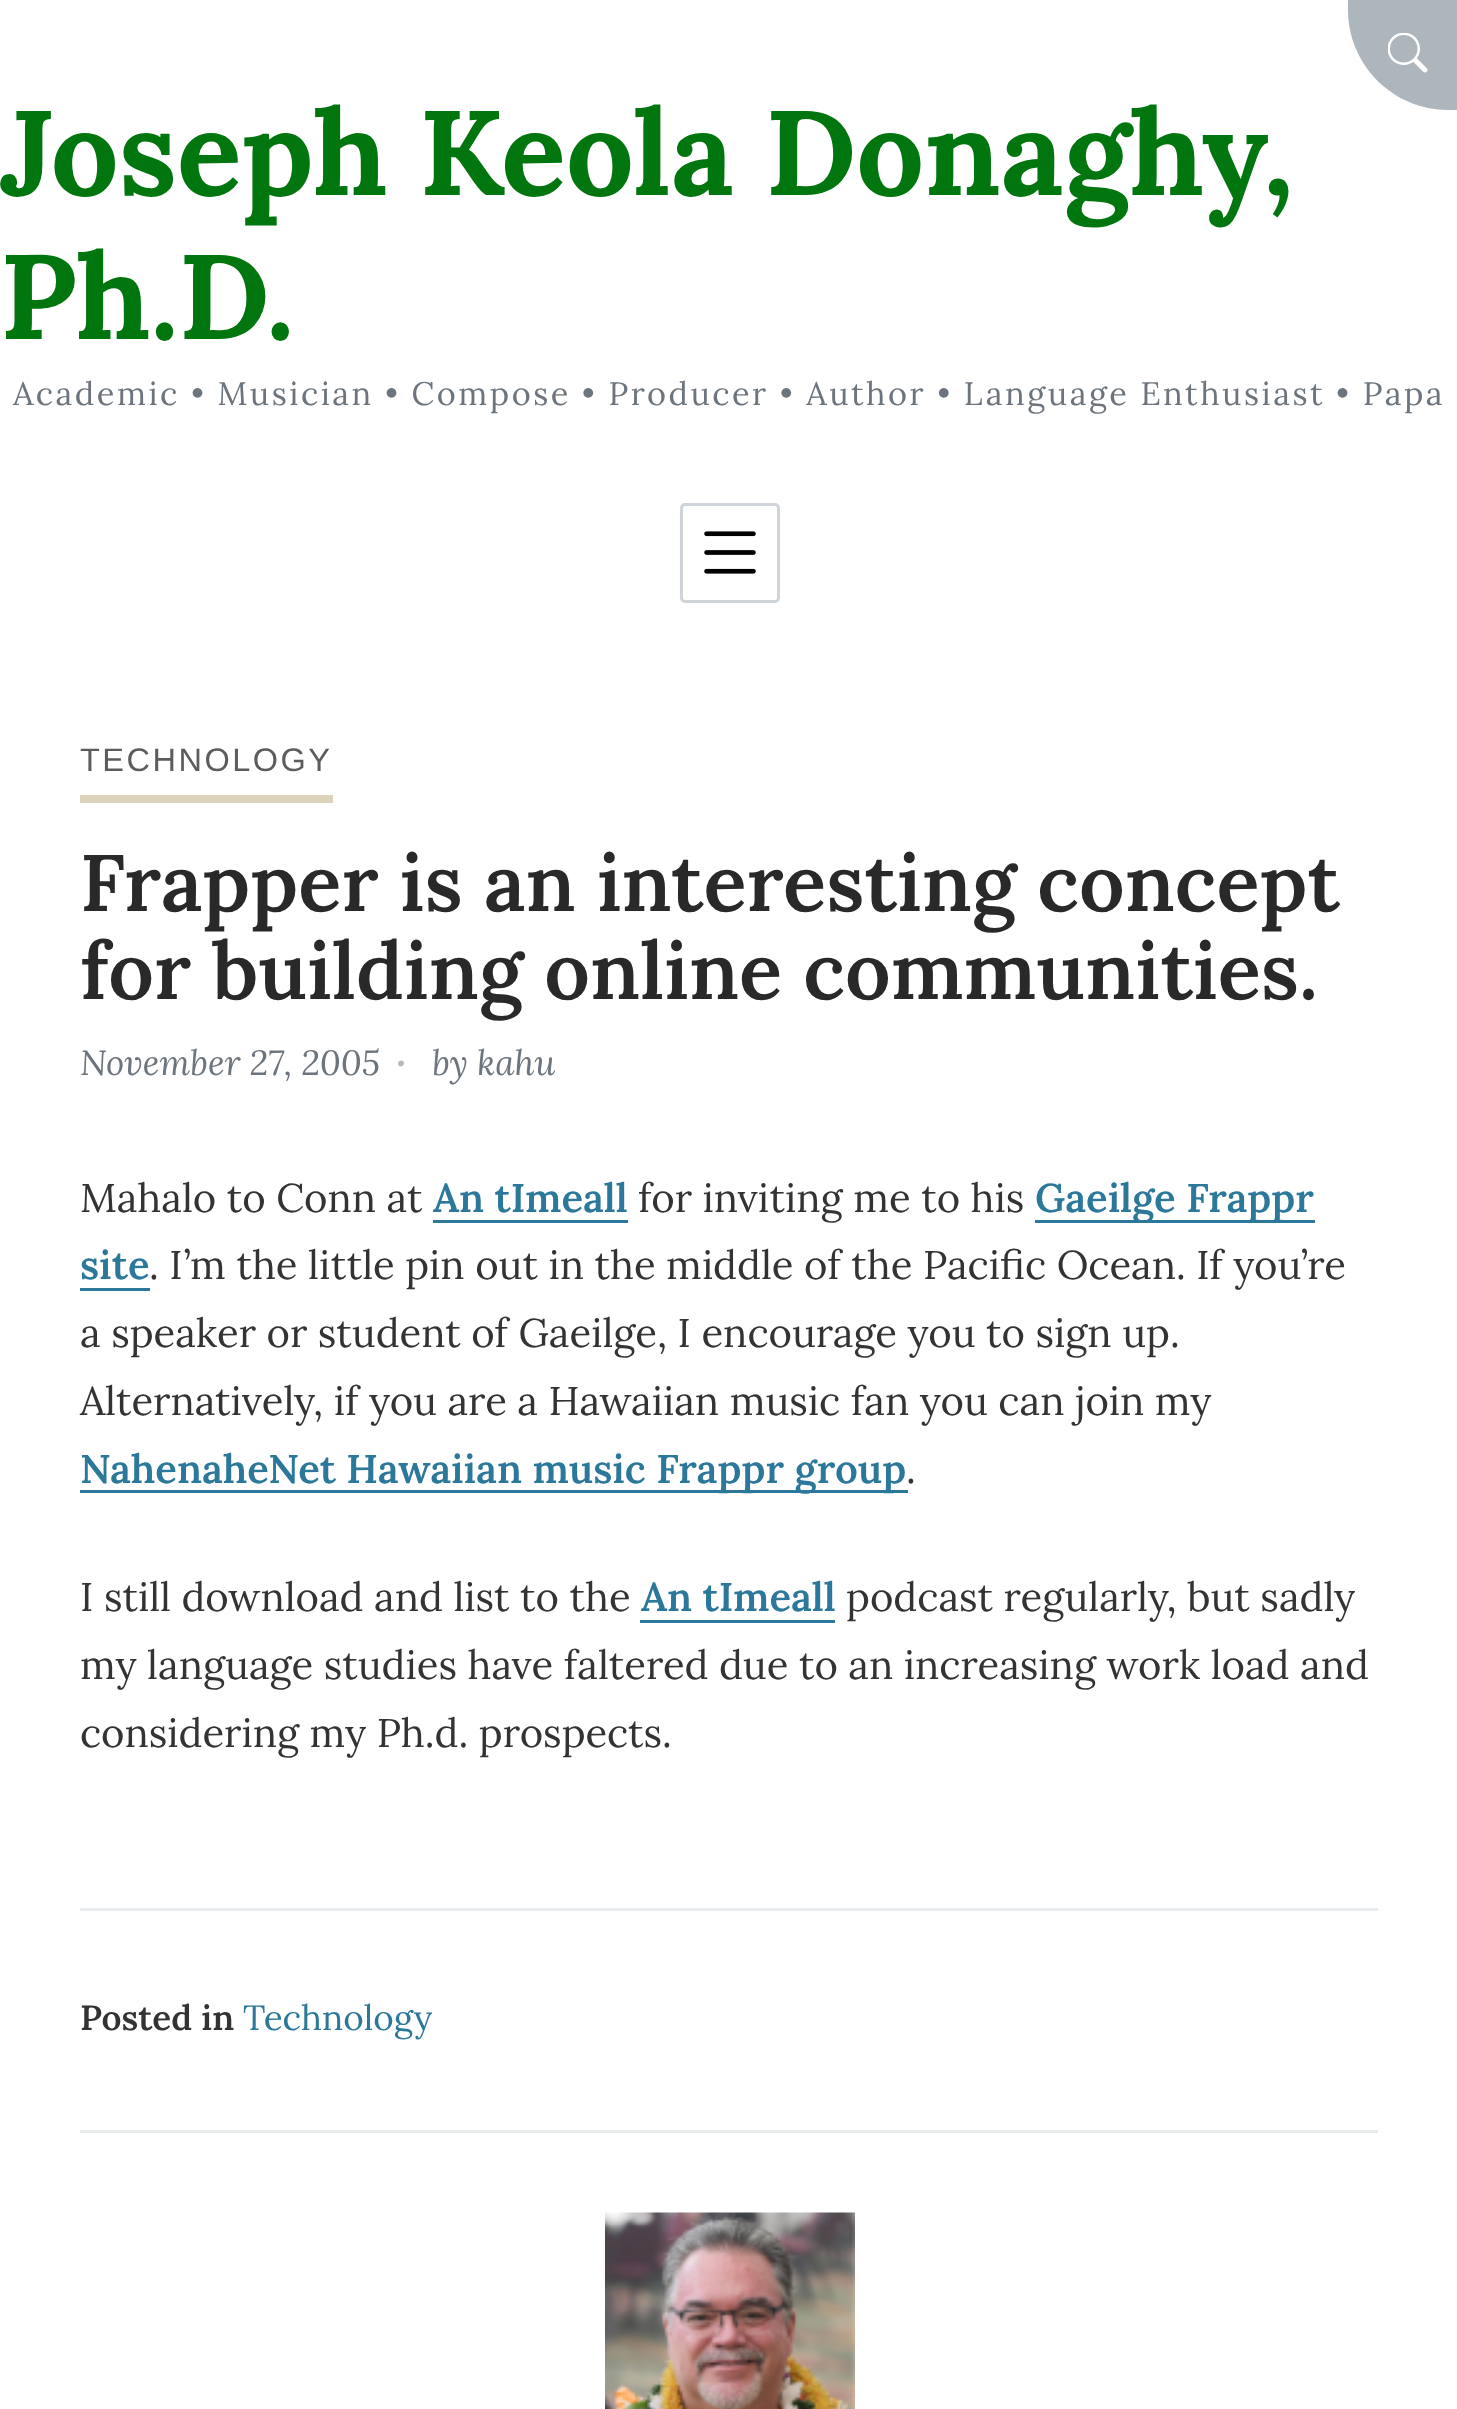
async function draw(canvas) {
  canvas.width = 1457;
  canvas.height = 2409;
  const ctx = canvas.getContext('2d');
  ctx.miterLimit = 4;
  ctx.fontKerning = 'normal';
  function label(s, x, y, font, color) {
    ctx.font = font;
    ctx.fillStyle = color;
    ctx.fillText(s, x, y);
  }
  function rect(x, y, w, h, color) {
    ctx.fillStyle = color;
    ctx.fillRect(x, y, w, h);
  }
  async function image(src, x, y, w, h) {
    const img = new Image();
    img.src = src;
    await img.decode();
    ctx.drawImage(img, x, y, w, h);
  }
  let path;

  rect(0, 0, 1457, 2409, '#fff');
  ctx.fillStyle = '#adb5bd';
  path = new Path2D('M1348 0H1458V110H1448C1393 110 1348 65 1348 10Z');
  ctx.fill(path);
  await image('assets/img1.png', 1388, 33, 40, 40);
  label('Joseph Keola Donaghy,', 0, 195, 'bold 120px Lora', '#01750e');
  label('Ph.D.', 0, 339, 'bold 120px Lora', '#01750e');
  ctx.letterSpacing = '2.5px';
  label('Academic • Musician • Compose • Producer • Author • Language Enthusiast • Papa', 13, 405, '32.5px Lora', '#6c757d');
  ctx.beginPath();
  ctx.roundRect(681.5, 504.5, 97, 97, 3.5);
  ctx.strokeStyle = '#ced4da';
  ctx.lineWidth = 3;
  ctx.stroke();
  await image('assets/img2.png', 704, 531, 52, 43);
  label('TECHNOLOGY', 80, 771, '32.5px Liberation Sans', '#5c5c5c');
  rect(80, 795, 253, 8, '#ddd2bc');
  ctx.letterSpacing = '0px';
  label('Frapper is an interesting concept', 80, 911, '600 80px Lora', '#292929');
  label('for building online communities.', 80, 999, '600 80px Lora', '#292929');
  label('November 27, 2005', 80, 1075, 'italic 35px Lora', '#6c757d');
  label('•', 397, 1071, 'italic 20px Lora', '#b6babe');
  label('by kahu', 432, 1075, 'italic 35px Lora', '#6c757d');
  rect(80, 1908, 1298, 3, '#e9ecef');
  label('Mahalo to Conn at', 80, 1212, '40px Lora', '#333');
  label('An tImeall', 433, 1212, '600 40px Lora', '#2b789b');
  rect(433, 1220, 195, 3, '#2b789b');
  label('for inviting me to his', 638, 1212, '40px Lora', '#333');
  rect(1035, 1220, 280, 3, '#2b789b');
  label('Gaeilge Frappr', 1035, 1212, '600 40px Lora', '#2b789b');
  label('site', 80, 1279, '600 40px Lora', '#2b789b');
  rect(80, 1288, 70, 3, '#2b789b');
  label('. I’m the little pin out in the middle of the Pacific Ocean. If you’re', 149, 1279, '40px Lora', '#333');
  label('a speaker or student of Gaeilge, I encourage you to sign up.', 80, 1347, '40px Lora', '#333');
  label('Alternatively, if you are a Hawaiian music fan you can join my', 80, 1415, '40px Lora', '#333');
  rect(80, 1490, 828, 3, '#2b789b');
  label('NahenaheNet Hawaiian music Frappr group', 80, 1483, '600 40px Lora', '#2b789b');
  label('.', 906, 1483, '40px Lora', '#333');
  label('I still download and list to the', 80, 1611, '40px Lora', '#333');
  label('An tImeall', 641, 1611, '600 40px Lora', '#2b789b');
  rect(640, 1620, 195, 3, '#2b789b');
  label('podcast regularly, but sadly', 846, 1611, '40px Lora', '#333');
  label('my language studies have faltered due to an increasing work load and', 80, 1679, '40px Lora', '#333');
  label('considering my Ph.d. prospects.', 80, 1747, '40px Lora', '#333');
  rect(80, 2130, 1298, 3, '#e9ecef');
  label('Posted in', 80, 2030, '600 35px Lora', '#333');
  label('Technology', 243, 2030, '35px Lora', '#2b789b');
  await image('assets/img3.png', 605, 2212, 250, 197);
}

draw(document.querySelector('canvas'));
